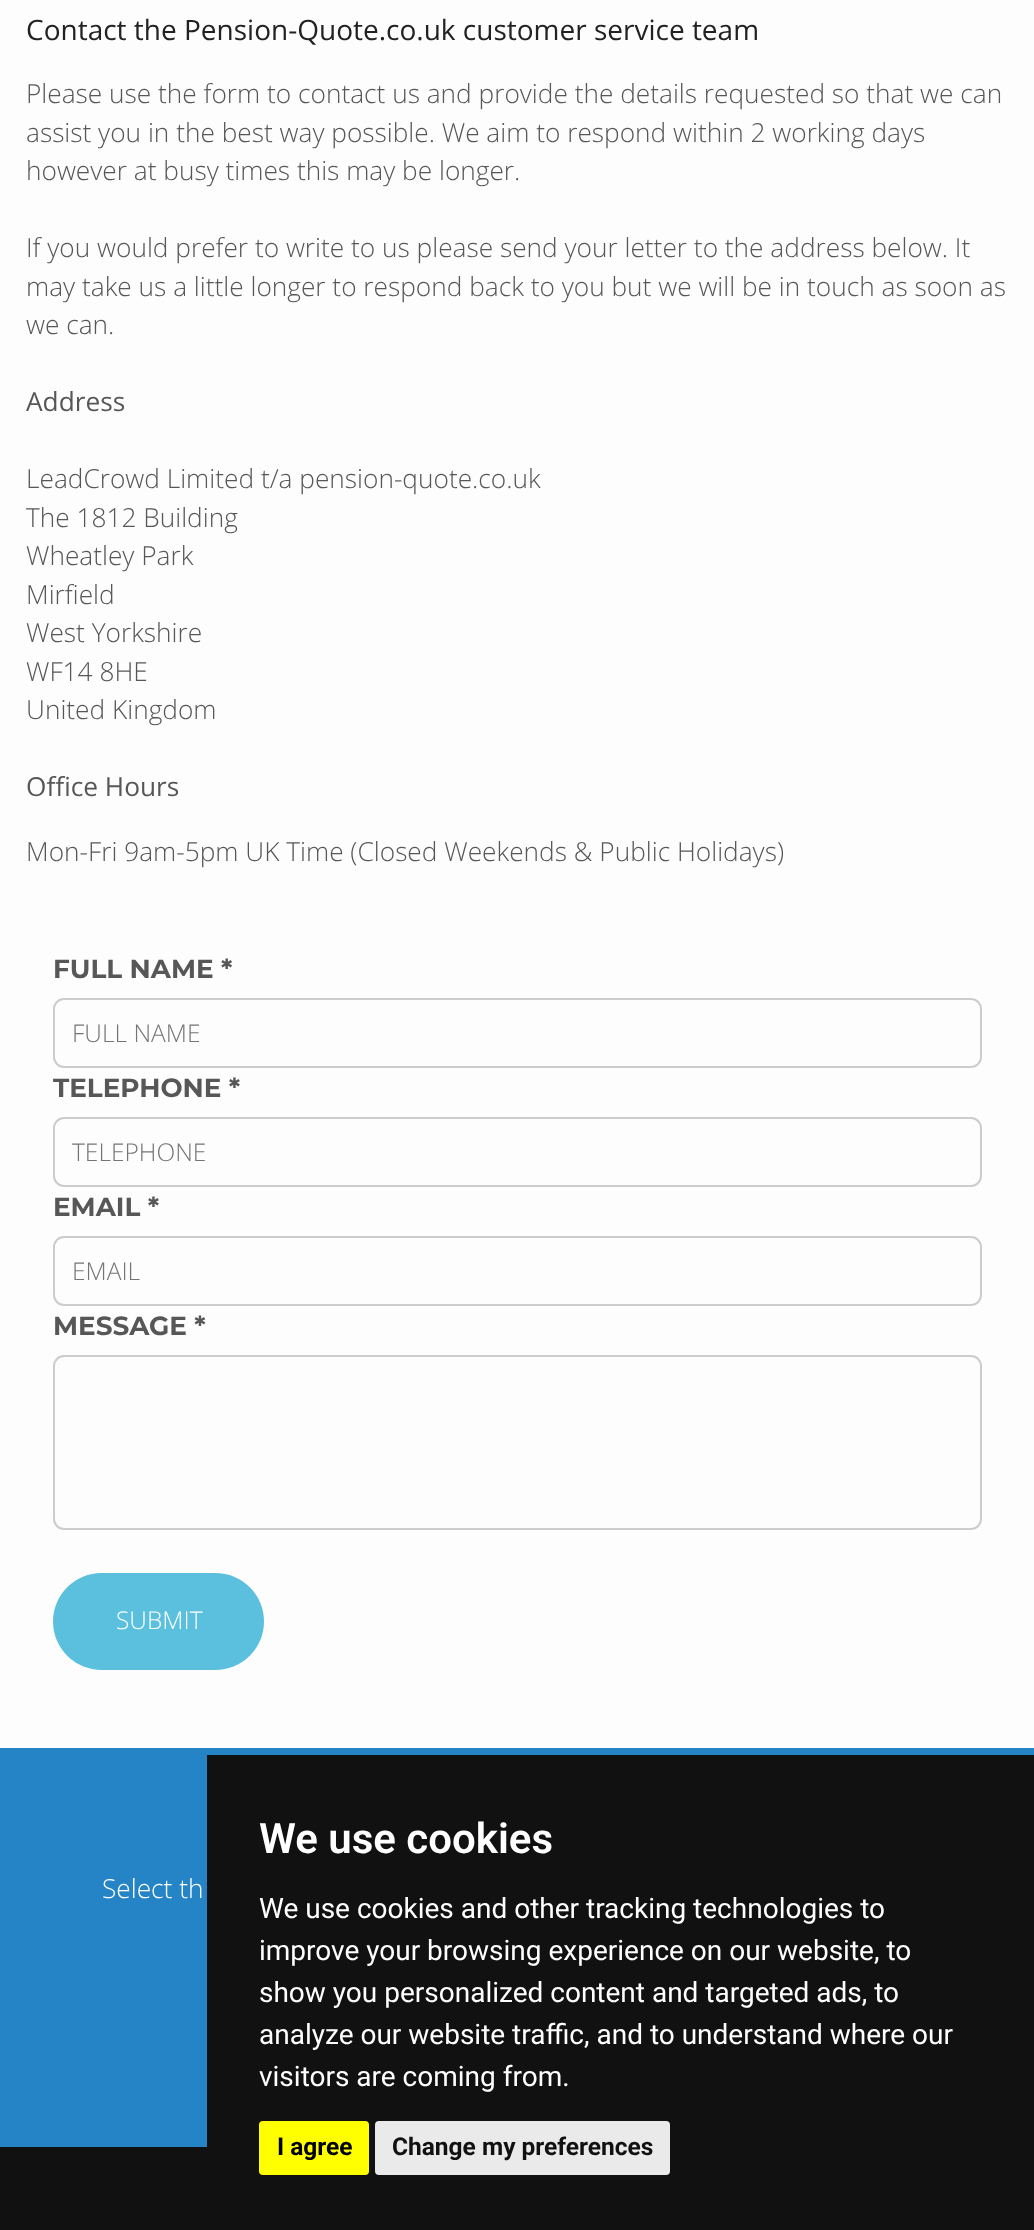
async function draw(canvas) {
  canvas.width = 1034;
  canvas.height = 2230;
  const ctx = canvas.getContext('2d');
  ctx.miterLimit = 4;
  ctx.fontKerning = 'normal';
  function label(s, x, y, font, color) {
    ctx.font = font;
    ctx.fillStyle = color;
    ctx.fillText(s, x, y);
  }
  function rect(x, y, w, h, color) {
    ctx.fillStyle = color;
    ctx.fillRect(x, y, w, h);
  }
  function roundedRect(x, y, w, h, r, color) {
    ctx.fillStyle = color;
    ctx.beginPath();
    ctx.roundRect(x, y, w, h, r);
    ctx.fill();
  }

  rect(0, 0, 1034, 2230, '#fdfdfd');
  label('Contact the Pension-Quote.co.uk customer service team', 26, 40, '28px Open Sans', '#222');
  label('Please use the form to contact us and provide the details requested so that we can', 26, 103, '300 26.25px Open Sans', '#575757');
  label('assist you in the best way possible. We aim to respond within 2 working days', 26, 142, '300 26.25px Open Sans', '#575757');
  label('however at busy times this may be longer.', 26, 180, '300 26.25px Open Sans', '#575757');
  label('If you would prefer to write to us please send your letter to the address below. It', 26, 257, '300 26.25px Open Sans', '#575757');
  label('may take us a little longer to respond back to you but we will be in touch as soon as', 26, 296, '300 26.25px Open Sans', '#575757');
  label('we can.', 26, 334, '300 26.25px Open Sans', '#575757');
  label('Address', 26, 411, '26.25px Open Sans', '#575757');
  label('LeadCrowd Limited t/a pension-quote.co.uk', 26, 488, '300 26.25px Open Sans', '#575757');
  label('The 1812 Building', 26, 527, '300 26.25px Open Sans', '#575757');
  label('Wheatley Park', 26, 565, '300 26.25px Open Sans', '#575757');
  label('Mirfield', 26, 604, '300 26.25px Open Sans', '#575757');
  label('West Yorkshire', 26, 642, '300 26.25px Open Sans', '#575757');
  label('WF14 8HE', 26, 681, '300 26.25px Open Sans', '#575757');
  label('United Kingdom', 26, 719, '300 26.25px Open Sans', '#575757');
  label('Office Hours', 26, 796, '26.25px Open Sans', '#575757');
  label('Mon-Fri 9am-5pm UK Time (Closed Weekends & Public Holidays)', 26, 861, '300 26.25px Open Sans', '#575757');
  label('FULL NAME *', 53, 978, 'bold 26.25px Montserrat', '#575757');
  ctx.beginPath();
  ctx.roundRect(54, 999, 927, 68, 10);
  ctx.strokeStyle = '#ccc';
  ctx.lineWidth = 2;
  ctx.stroke();
  label('FULL NAME', 72, 1042, '300 24.5px Open Sans', '#757575');
  label('TELEPHONE *', 53, 1097, 'bold 26.25px Montserrat', '#575757');
  ctx.beginPath();
  ctx.roundRect(54, 1118, 927, 68, 10);
  ctx.stroke();
  label('TELEPHONE', 72, 1161, '300 24.5px Open Sans', '#757575');
  label('EMAIL *', 53, 1216, 'bold 26.25px Montserrat', '#575757');
  ctx.beginPath();
  ctx.roundRect(54, 1237, 927, 68, 10);
  ctx.stroke();
  label('EMAIL', 72, 1280, '300 24.5px Open Sans', '#757575');
  label('MESSAGE *', 53, 1335, 'bold 26.25px Montserrat', '#575757');
  ctx.beginPath();
  ctx.roundRect(54, 1356, 927, 173, 10);
  ctx.stroke();
  roundedRect(53, 1573, 211, 97, 48.5, '#5bc0de');
  label('SUBMIT', 116, 1629, '300 24.5px Open Sans', '#fff');
  rect(0, 1748, 1034, 399, '#2584c6');
  label('Select th', 102, 1898, '300 26.25px Open Sans', '#fff');
  rect(0, 2147, 207, 83, '#111');
  rect(207, 1755, 827, 475, '#111');
  label('We use cookies', 259, 1853, '600 42px Roboto', '#fff');
  label('We use cookies and other tracking technologies to', 259, 1918, '28px Roboto', '#fff');
  label('improve your browsing experience on our website, to', 259, 1960, '28px Roboto', '#fff');
  label('show you personalized content and targeted ads, to', 259, 2002, '28px Roboto', '#fff');
  label('analyze our website traffic, and to understand where our', 259, 2044, '28px Roboto', '#fff');
  label('visitors are coming from.', 259, 2086, '28px Roboto', '#fff');
  roundedRect(259, 2121, 110, 54, 4, '#ff0');
  label('I agree', 277, 2155, 'bold 24.5px Roboto', '#000');
  roundedRect(375, 2121, 295, 54, 4, '#eaeaea');
  label('Change my preferences', 392, 2155, 'bold 24.5px Roboto', '#111');
}

draw(document.querySelector('canvas'));
